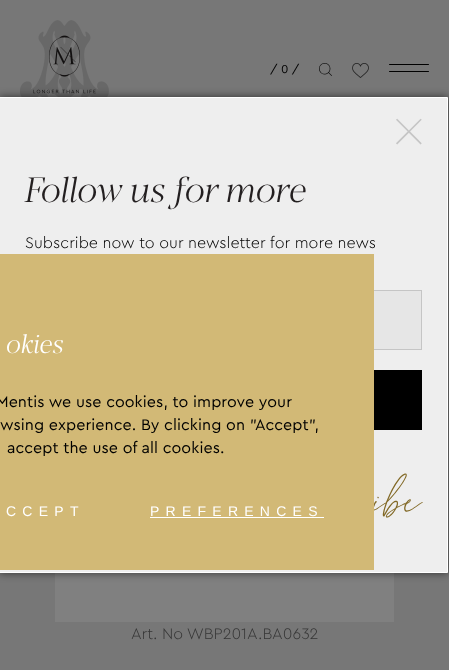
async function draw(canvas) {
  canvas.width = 449;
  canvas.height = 670;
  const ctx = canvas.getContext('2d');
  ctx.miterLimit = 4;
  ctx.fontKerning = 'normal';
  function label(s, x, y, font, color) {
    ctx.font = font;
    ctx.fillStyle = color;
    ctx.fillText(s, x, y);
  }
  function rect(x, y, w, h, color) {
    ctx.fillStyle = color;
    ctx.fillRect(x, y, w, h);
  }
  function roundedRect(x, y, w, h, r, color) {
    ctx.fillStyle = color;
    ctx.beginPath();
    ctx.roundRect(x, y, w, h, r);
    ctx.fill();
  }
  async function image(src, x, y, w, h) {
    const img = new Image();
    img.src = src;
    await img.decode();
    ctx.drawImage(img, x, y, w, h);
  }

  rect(0, 0, 449, 670, '#777');
  await image('assets/img1.png', 20, 20, 89, 77);
  label('/ 0 /', 270, 73, '12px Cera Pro', '#000');
  await image('assets/img2.png', 319, 63, 13, 13);
  await image('assets/img3.png', 352, 63, 17, 15);
  roundedRect(389, 64, 40, 1, 0.5, '#000');
  roundedRect(389, 71, 40, 1, 0.5, '#000');
  await image('assets/img4.png', 55, 573, 339, 49);
  ctx.fillStyle = '#00000099';
  ctx.filter = 'blur(4px)';
  ctx.beginPath();
  ctx.rect(-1, 97, 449, 476);
  ctx.fill();
  ctx.filter = 'none';
  ctx.fillStyle = '#eee';
  ctx.beginPath();
  ctx.rect(-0.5, 97.5, 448, 475);
  ctx.fill();
  ctx.strokeStyle = '#fff';
  ctx.stroke();
  label('×', 392, 152, '300 72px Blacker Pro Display', '#c5c5c5');
  label('Follow us for more', 25, 202, 'italic 900 35px Blacker Pro Display', '#231f20');
  ctx.letterSpacing = '0.05px';
  label('Subscribe now to our newsletter for more news', 25, 248, '300 16px Cera Pro', '#000');
  rect(374, 291, 47, 58, '#e6e6e6');
  ctx.strokeStyle = '#c5c5c5';
  ctx.strokeRect(25.5, 290.5, 396, 59);
  rect(374, 370, 48, 60, '#000');
  label('ibe', 375, 524, '70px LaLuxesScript', '#826926');
  rect(0, 254, 374, 316, '#d2b976');
  ctx.letterSpacing = '0px';
  label('okies', 6, 353, 'italic 900 26px Blacker Pro Display', '#fff');
  ctx.letterSpacing = '0.1px';
  label('Mentis we use cookies, to improve your', -4, 407, '16px Cera Pro', '#000');
  label('wsing experience. By clicking on "Accept",', 0, 430, '16px Cera Pro', '#000');
  label('accept the use of all cookies.', 7, 453, '16px Cera Pro', '#000');
  ctx.letterSpacing = '6.25px';
  label('CCEPT', 6, 516, '14px Liberation Sans', '#fff');
  label('PREFERENCES', 150, 516, '14px Liberation Sans', '#fff');
  rect(150, 517, 174, 1, '#fff');
  ctx.letterSpacing = '0px';
  label('Art. No WBP201A.BA0632', 131, 639, '300 16px Cera Pro', '#363636');
}

draw(document.querySelector('canvas'));
